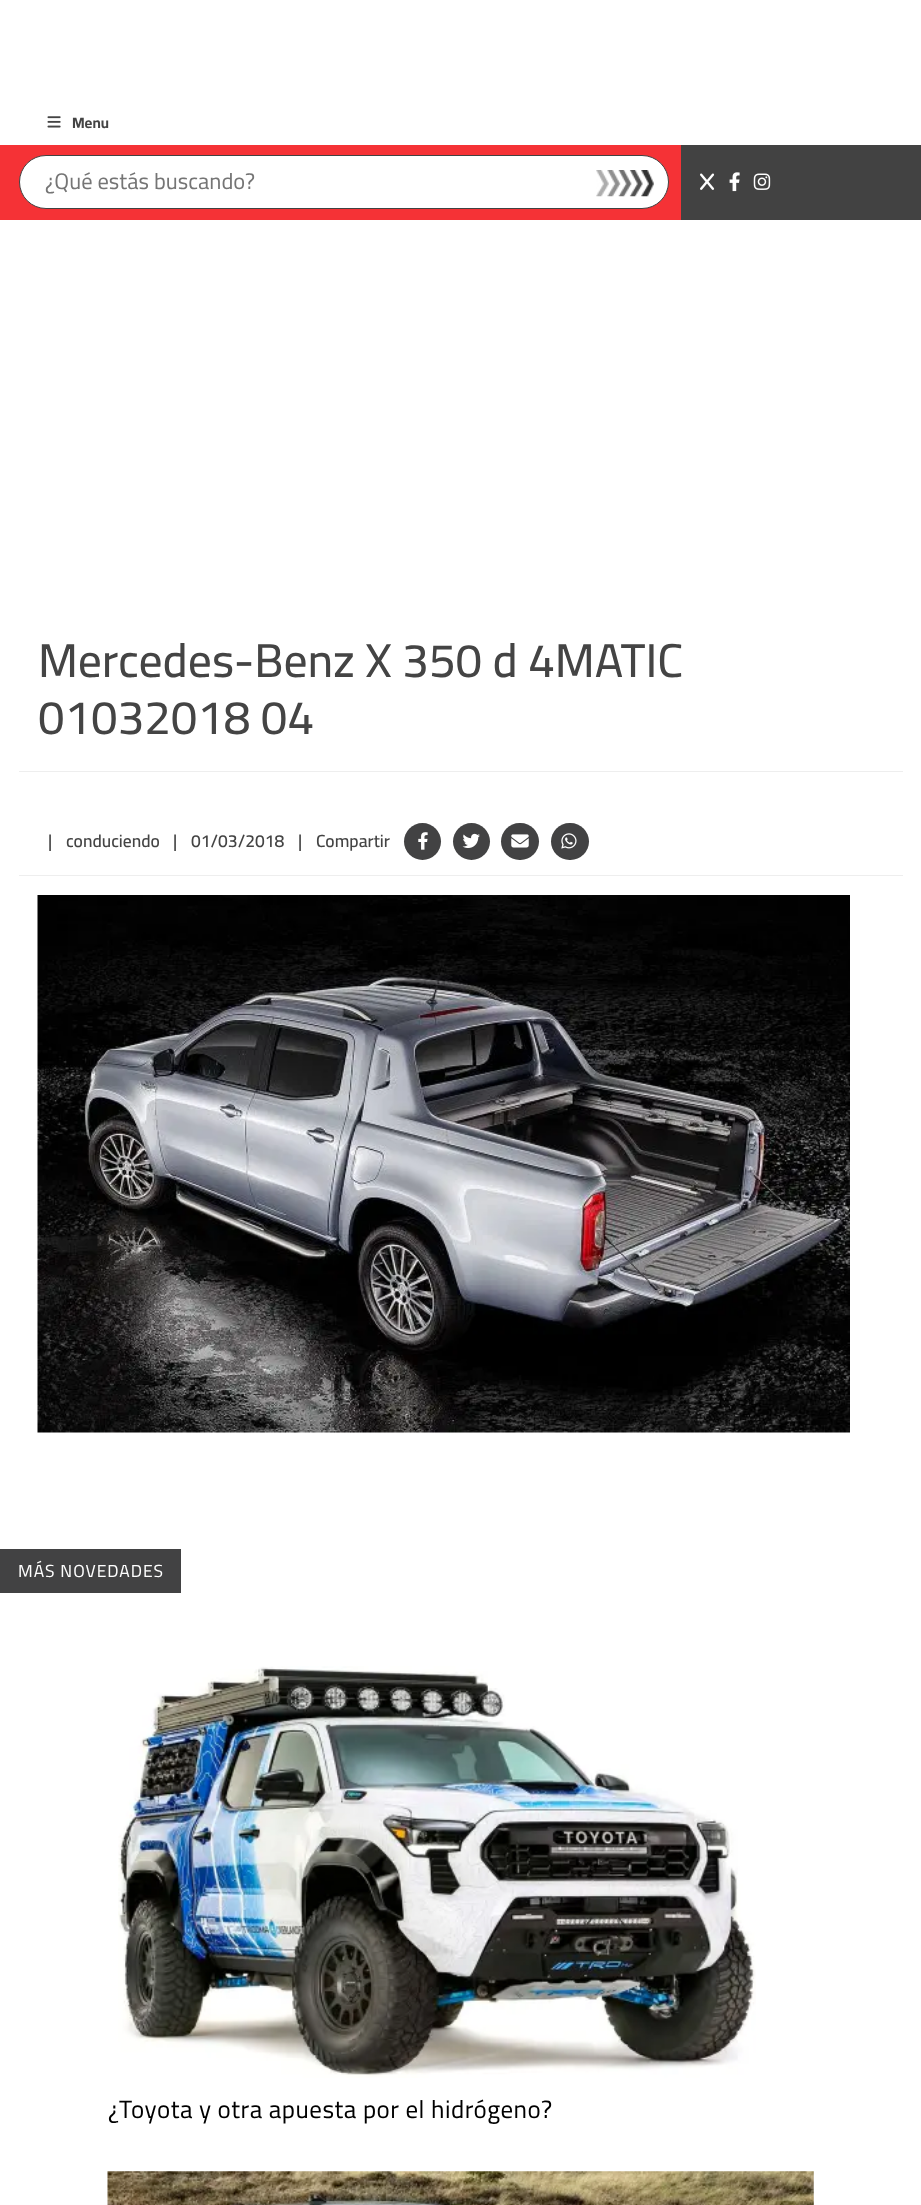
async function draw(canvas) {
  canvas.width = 921;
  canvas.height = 2205;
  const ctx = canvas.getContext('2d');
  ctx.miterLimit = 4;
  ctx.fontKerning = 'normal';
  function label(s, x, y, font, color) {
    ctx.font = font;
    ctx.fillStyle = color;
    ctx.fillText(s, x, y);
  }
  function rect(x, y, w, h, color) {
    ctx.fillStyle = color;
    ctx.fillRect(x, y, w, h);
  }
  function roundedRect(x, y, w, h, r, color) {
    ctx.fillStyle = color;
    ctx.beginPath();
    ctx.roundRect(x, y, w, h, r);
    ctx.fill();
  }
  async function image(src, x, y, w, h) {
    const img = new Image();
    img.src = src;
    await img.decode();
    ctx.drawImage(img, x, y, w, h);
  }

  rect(0, 0, 921, 2205, '#fff');
  await image('assets/img1.png', 47, 116, 14, 12);
  label('Menu', 72, 128, 'bold 15px Cairo', '#444');
  rect(681, 145, 240, 75, '#424242');
  rect(0, 145, 681, 75, '#f53236');
  ctx.fillStyle = '#fff';
  ctx.beginPath();
  ctx.roundRect(19.5, 155.5, 649, 53, 26.5);
  ctx.fill();
  ctx.strokeStyle = '#424242';
  ctx.stroke();
  label('¿Qué estás buscando?', 45, 189, '22.5px Cairo', '#757575');
  await image('assets/img2.png', 596, 170, 58, 27);
  await image('assets/img3.png', 700, 173, 15, 17);
  await image('assets/img4.png', 729, 172, 11, 20);
  await image('assets/img5.png', 753, 173, 18, 17);
  rect(19, 771, 884, 1, '#eee');
  label('Mercedes-Benz X 350 d 4MATIC', 38, 677, '500 47.5px Cairo', '#444');
  label('01032018 04', 38, 734, '500 47.5px Cairo', '#444');
  rect(19, 875, 884, 1, '#eee');
  label('|', 48, 847, '600 17.5px Cairo', '#444');
  label('conduciendo', 66, 847, '600 17.5px Cairo', '#444');
  label('|', 173, 847, '600 17.5px Cairo', '#444');
  label('01/03/2018', 191, 847, '600 17.5px Cairo', '#444');
  label('|', 298, 847, '600 17.5px Cairo', '#444');
  label('Compartir', 316, 847, '600 17.5px Cairo', '#444');
  ctx.fillStyle = '#424243';
  ctx.beginPath();
  ctx.arc(422.5, 841.5, 18.5, 0, 2 * Math.PI);
  ctx.fill();
  await image('assets/img6.png', 418, 832, 10, 18);
  ctx.beginPath();
  ctx.arc(471.5, 841.5, 18.5, 0, 2 * Math.PI);
  ctx.fill();
  await image('assets/img7.png', 462, 833, 18, 15);
  roundedRect(501, 823, 38, 37, 18.5, '#424243');
  await image('assets/img8.png', 511, 834, 18, 14);
  roundedRect(551, 823, 38, 37, 18.5, '#424243');
  await image('assets/img9.png', 561, 833, 16, 16);
  await image('assets/img10.png', 37, 895, 813, 538);
  rect(0, 1549, 181, 44, '#424243');
  ctx.letterSpacing = '1px';
  label('MÁS NOVEDADES', 18, 1577, '17.5px Cairo', '#fff');
  await image('assets/img11.png', 118, 1666, 638, 412);
  ctx.letterSpacing = '0.5px';
  label('¿Toyota y otra apuesta por el hidrógeno?', 108, 2118, '25px Cairo', '#000');
  await image('assets/img12.png', 107, 2171, 707, 34);
}

draw(document.querySelector('canvas'));
